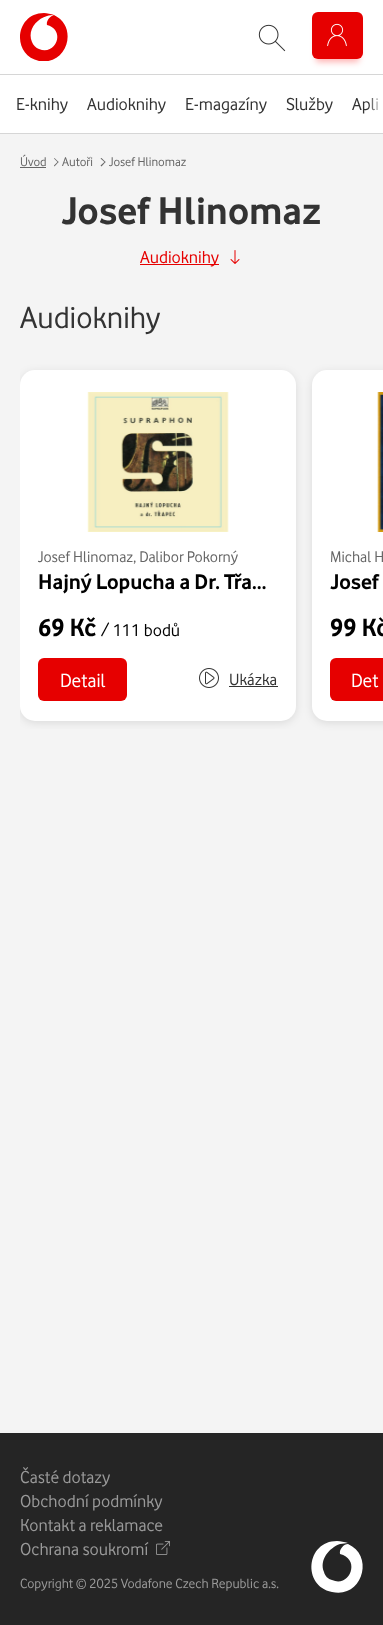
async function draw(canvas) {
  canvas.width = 383;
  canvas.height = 1625;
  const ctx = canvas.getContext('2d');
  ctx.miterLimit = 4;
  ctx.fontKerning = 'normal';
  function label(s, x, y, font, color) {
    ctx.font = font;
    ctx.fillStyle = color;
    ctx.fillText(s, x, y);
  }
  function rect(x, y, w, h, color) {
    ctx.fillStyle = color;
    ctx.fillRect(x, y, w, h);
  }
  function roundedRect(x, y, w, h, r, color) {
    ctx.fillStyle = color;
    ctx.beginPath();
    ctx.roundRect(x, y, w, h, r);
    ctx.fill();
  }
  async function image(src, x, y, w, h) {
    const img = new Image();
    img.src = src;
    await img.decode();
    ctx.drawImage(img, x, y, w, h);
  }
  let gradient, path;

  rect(0, 0, 383, 1625, '#f4f4f4');
  rect(0, 0, 383, 74, '#fff');
  rect(0, 74, 383, 1, '#d6d6d6');
  ctx.save();
  ctx.beginPath();
  ctx.rect(20, 13, 48, 48);
  ctx.clip();
  ctx.fillStyle = '#e60000';
  path = new Path2D('M44 13C15 13 11 55 39 61C67 66 79 27 54 15C50 16 46 21 47 25C66 30 56 56 39 49C36 48 33 45 32 42C27 31 36 19 47 16C49 15 52 15 54 15C51 14 47 13 44 13Z');
  ctx.fill(path);
  ctx.restore();
  await image('assets/img1.png', 258, 24, 28, 28);
  ctx.fillStyle = '#ff00004d';
  ctx.filter = 'blur(3px)';
  ctx.beginPath();
  ctx.roundRect(316, 23, 43, 39, 2);
  ctx.fill();
  ctx.filter = 'none';
  roundedRect(312, 12, 51, 47, 6, '#e60000');
  await image('assets/img2.png', 327, 23, 20, 24);
  rect(0, 75, 383, 58, '#fff');
  rect(0, 133, 383, 1, '#d6d6d6');
  label('E-knihy', 16, 110, '18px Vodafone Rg', '#333');
  label('Audioknihy', 87, 110, '18px Vodafone Rg', '#333');
  label('E-magazíny', 185, 110, '18px Vodafone Rg', '#333');
  label('Služby', 286, 110, '18px Vodafone Rg', '#333');
  label('Apli', 352, 110, '18px Vodafone Rg', '#333');
  gradient = ctx.createLinearGradient(368, 104, 383, 104);
  gradient.addColorStop(0, '#ffffff00');
  gradient.addColorStop(1, '#fff');
  ctx.fillStyle = gradient;
  ctx.fillRect(368, 98, 10, 13);
  label('Úvod', 20, 166, '13px Vodafone Rg', '#666');
  rect(20, 167, 26, 1, '#666');
  path = new Path2D('M54.5 158L58.5 162L58 162.5L54 158.5Z');
  ctx.fill(path);
  path = new Path2D('M58 161.5L58.5 162L54.5 166.5L54 165.5Z');
  ctx.fill(path);
  label('Autoři', 62, 166, '13px Vodafone Rg', '#666');
  path = new Path2D('M101.5 158L105.5 162L105 162.5L100.5 158.5Z');
  ctx.fill(path);
  path = new Path2D('M105 161.5L105.5 162L101.5 166.5L100.5 165.5Z');
  ctx.fill(path);
  label('Josef Hlinomaz', 109, 166, '13px Vodafone Rg', '#666');
  label('Josef Hlinomaz', 61, 224, 'bold 40px Vodafone Rg', '#333');
  rect(140, 264, 79, 1, '#e60000');
  label('Audioknihy', 140, 263, '18px Vodafone Rg', '#e60000');
  await image('assets/img3.png', 230, 250, 10, 14);
  label('Audioknihy', 20, 328, '32px Vodafone Rg', '#333');
  ctx.save();
  ctx.beginPath();
  ctx.rect(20, 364, 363, 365);
  ctx.clip();
  ctx.fillStyle = '#0000001a';
  ctx.filter = 'blur(4px)';
  ctx.beginPath();
  ctx.roundRect(20, 372, 276, 351, 15);
  ctx.fill();
  ctx.filter = 'none';
  ctx.restore();
  roundedRect(20, 370, 276, 351, 15, '#fff');
  await image('assets/img4.png', 87, 392, 142, 140);
  label('Josef Hlinomaz, Dalibor Pokorný', 38, 562, '16px Vodafone Rg', '#666');
  label('Hajný Lopucha a Dr. Třa…', 38, 589, 'bold 22px Vodafone Rg', '#000');
  label('69 Kč', 38, 636, 'bold 26px Vodafone Rg', '#000');
  label('/ 111 bodů', 101, 636, '18px Vodafone Rg', '#000');
  roundedRect(38, 658, 89, 43, 6, '#e60000');
  label('Detail', 60, 687, '20px Vodafone Rg', '#fff');
  await image('assets/img5.png', 199, 668, 20, 20);
  label('Ukázka', 229, 685, '17px Vodafone Rg', '#333');
  rect(229, 686, 49, 1, '#333');
  ctx.fillStyle = '#0000001a';
  ctx.filter = 'blur(4px)';
  ctx.beginPath();
  ctx.roundRect(312, 372, 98, 351, 15);
  ctx.fill();
  ctx.filter = 'none';
  ctx.fillStyle = '#fff';
  ctx.beginPath();
  ctx.roundRect(312, 370, 71, 351, [15, 0, 0, 15]);
  ctx.fill();
  await image('assets/img6.png', 377, 392, 6, 140);
  label('Michal H', 330, 562, '16px Vodafone Rg', '#666');
  label('Josef', 330, 589, 'bold 22px Vodafone Rg', '#000');
  label('99 Kč', 330, 636, 'bold 26px Vodafone Rg', '#000');
  ctx.fillStyle = '#e60000';
  ctx.beginPath();
  ctx.roundRect(330, 658, 53, 43, [6, 0, 0, 6]);
  ctx.fill();
  label('Det', 351, 687, '20px Vodafone Rg', '#fff');
  rect(0, 1433, 383, 192, '#252525');
  label('Časté dotazy', 20, 1483, '18px Vodafone Rg', '#999');
  label('Obchodní podmínky', 20, 1507, '18px Vodafone Rg', '#999');
  label('Kontakt a reklamace', 20, 1531, '18px Vodafone Rg', '#999');
  label('Ochrana soukromí', 20, 1555, '18px Vodafone Rg', '#999');
  await image('assets/img7.png', 156, 1541, 14, 14);
  label('Copyright © 2025 Vodafone Czech Republic a.s.', 20, 1588, '14px Vodafone Rg', '#999');
  ctx.fillStyle = '#fff';
  path = new Path2D('M337 1541C306 1541 302 1586 332 1592C362 1599 375 1556 348 1544C344 1544 339 1549 340 1554C361 1559 350 1588 332 1580C328 1579 325 1576 324 1572C319 1560 329 1548 340 1544C343 1544 345 1543 348 1543C344 1542 341 1541 337 1541Z');
  ctx.fill(path);
}

draw(document.querySelector('canvas'));
